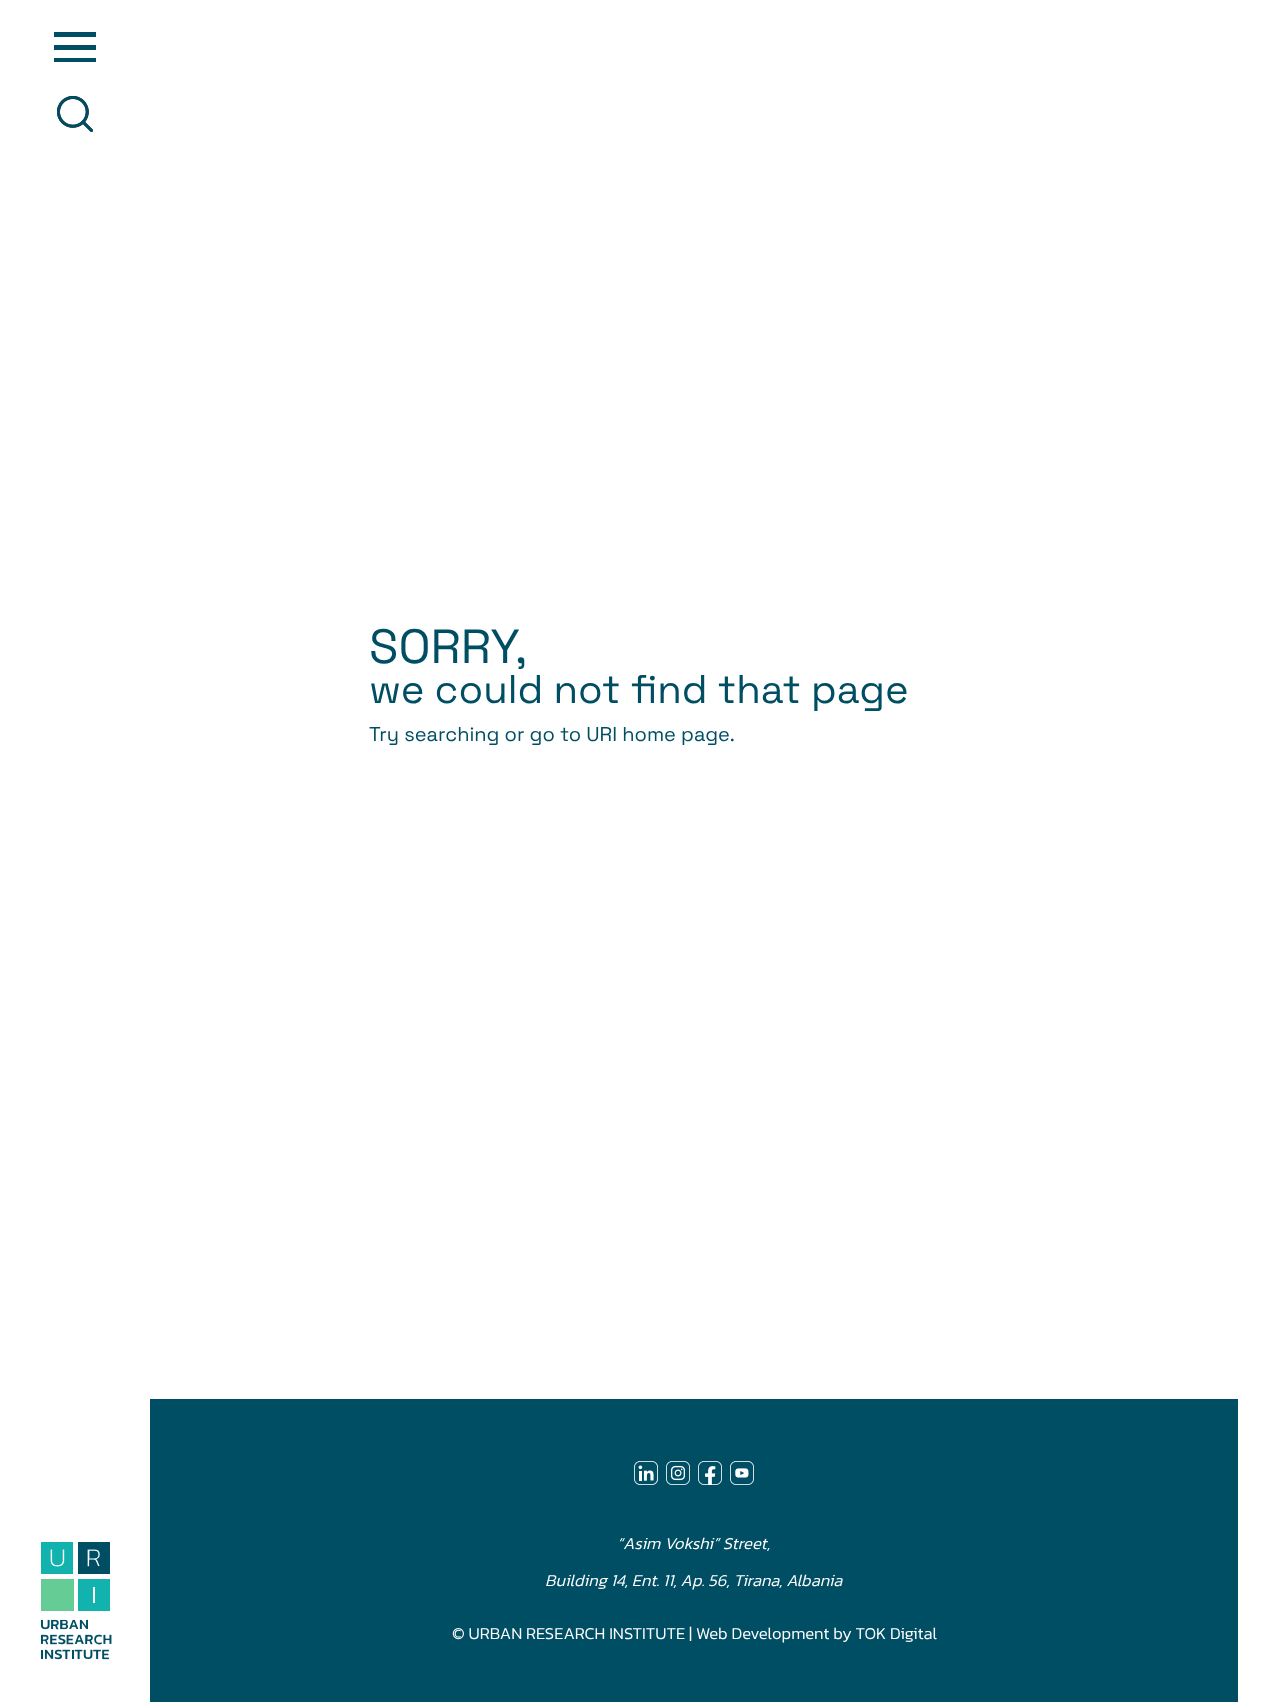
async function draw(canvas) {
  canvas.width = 1278;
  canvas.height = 1702;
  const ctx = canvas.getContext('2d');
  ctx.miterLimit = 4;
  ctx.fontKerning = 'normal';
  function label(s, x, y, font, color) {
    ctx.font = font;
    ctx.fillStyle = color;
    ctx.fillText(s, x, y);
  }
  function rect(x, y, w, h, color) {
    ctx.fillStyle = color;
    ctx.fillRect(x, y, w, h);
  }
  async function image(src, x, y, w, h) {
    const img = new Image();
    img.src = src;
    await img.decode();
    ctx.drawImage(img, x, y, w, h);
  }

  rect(0, 0, 1278, 1702, '#fff');
  rect(54, 32, 42, 5, '#004e63');
  rect(54, 45, 42, 5, '#004e63');
  rect(54, 58, 42, 4, '#004e63');
  await image('assets/img1.png', 57, 96, 36, 36);
  await image('assets/img2.png', 40, 1542, 72, 118);
  label('SORRY,', 369, 663, '48px Space Grotesk', '#004e63');
  label('we could not find that page', 369, 703, '40px Space Grotesk', '#004e63');
  label('Try searching or go to URI home page.', 369, 741, '20px Space Grotesk', '#004e63');
  rect(150, 1399, 1088, 303, '#004e63');
  await image('assets/img3.png', 634, 1461, 24, 24);
  await image('assets/img4.png', 666, 1461, 24, 24);
  await image('assets/img5.png', 698, 1461, 24, 24);
  await image('assets/img6.png', 730, 1461, 24, 24);
  label('“Asim Vokshi” Street,', 617, 1549, 'italic 300 16.7px Kanit', '#fff');
  label('Building 14, Ent. 11, Ap. 56, Tirana, Albania', 545, 1586, 'italic 300 16.7px Kanit', '#fff');
  label('© URBAN RESEARCH INSTITUTE | Web Development by TOK Digital', 452, 1639, '300 16.7px Kanit', '#fff');
}

draw(document.querySelector('canvas'));
